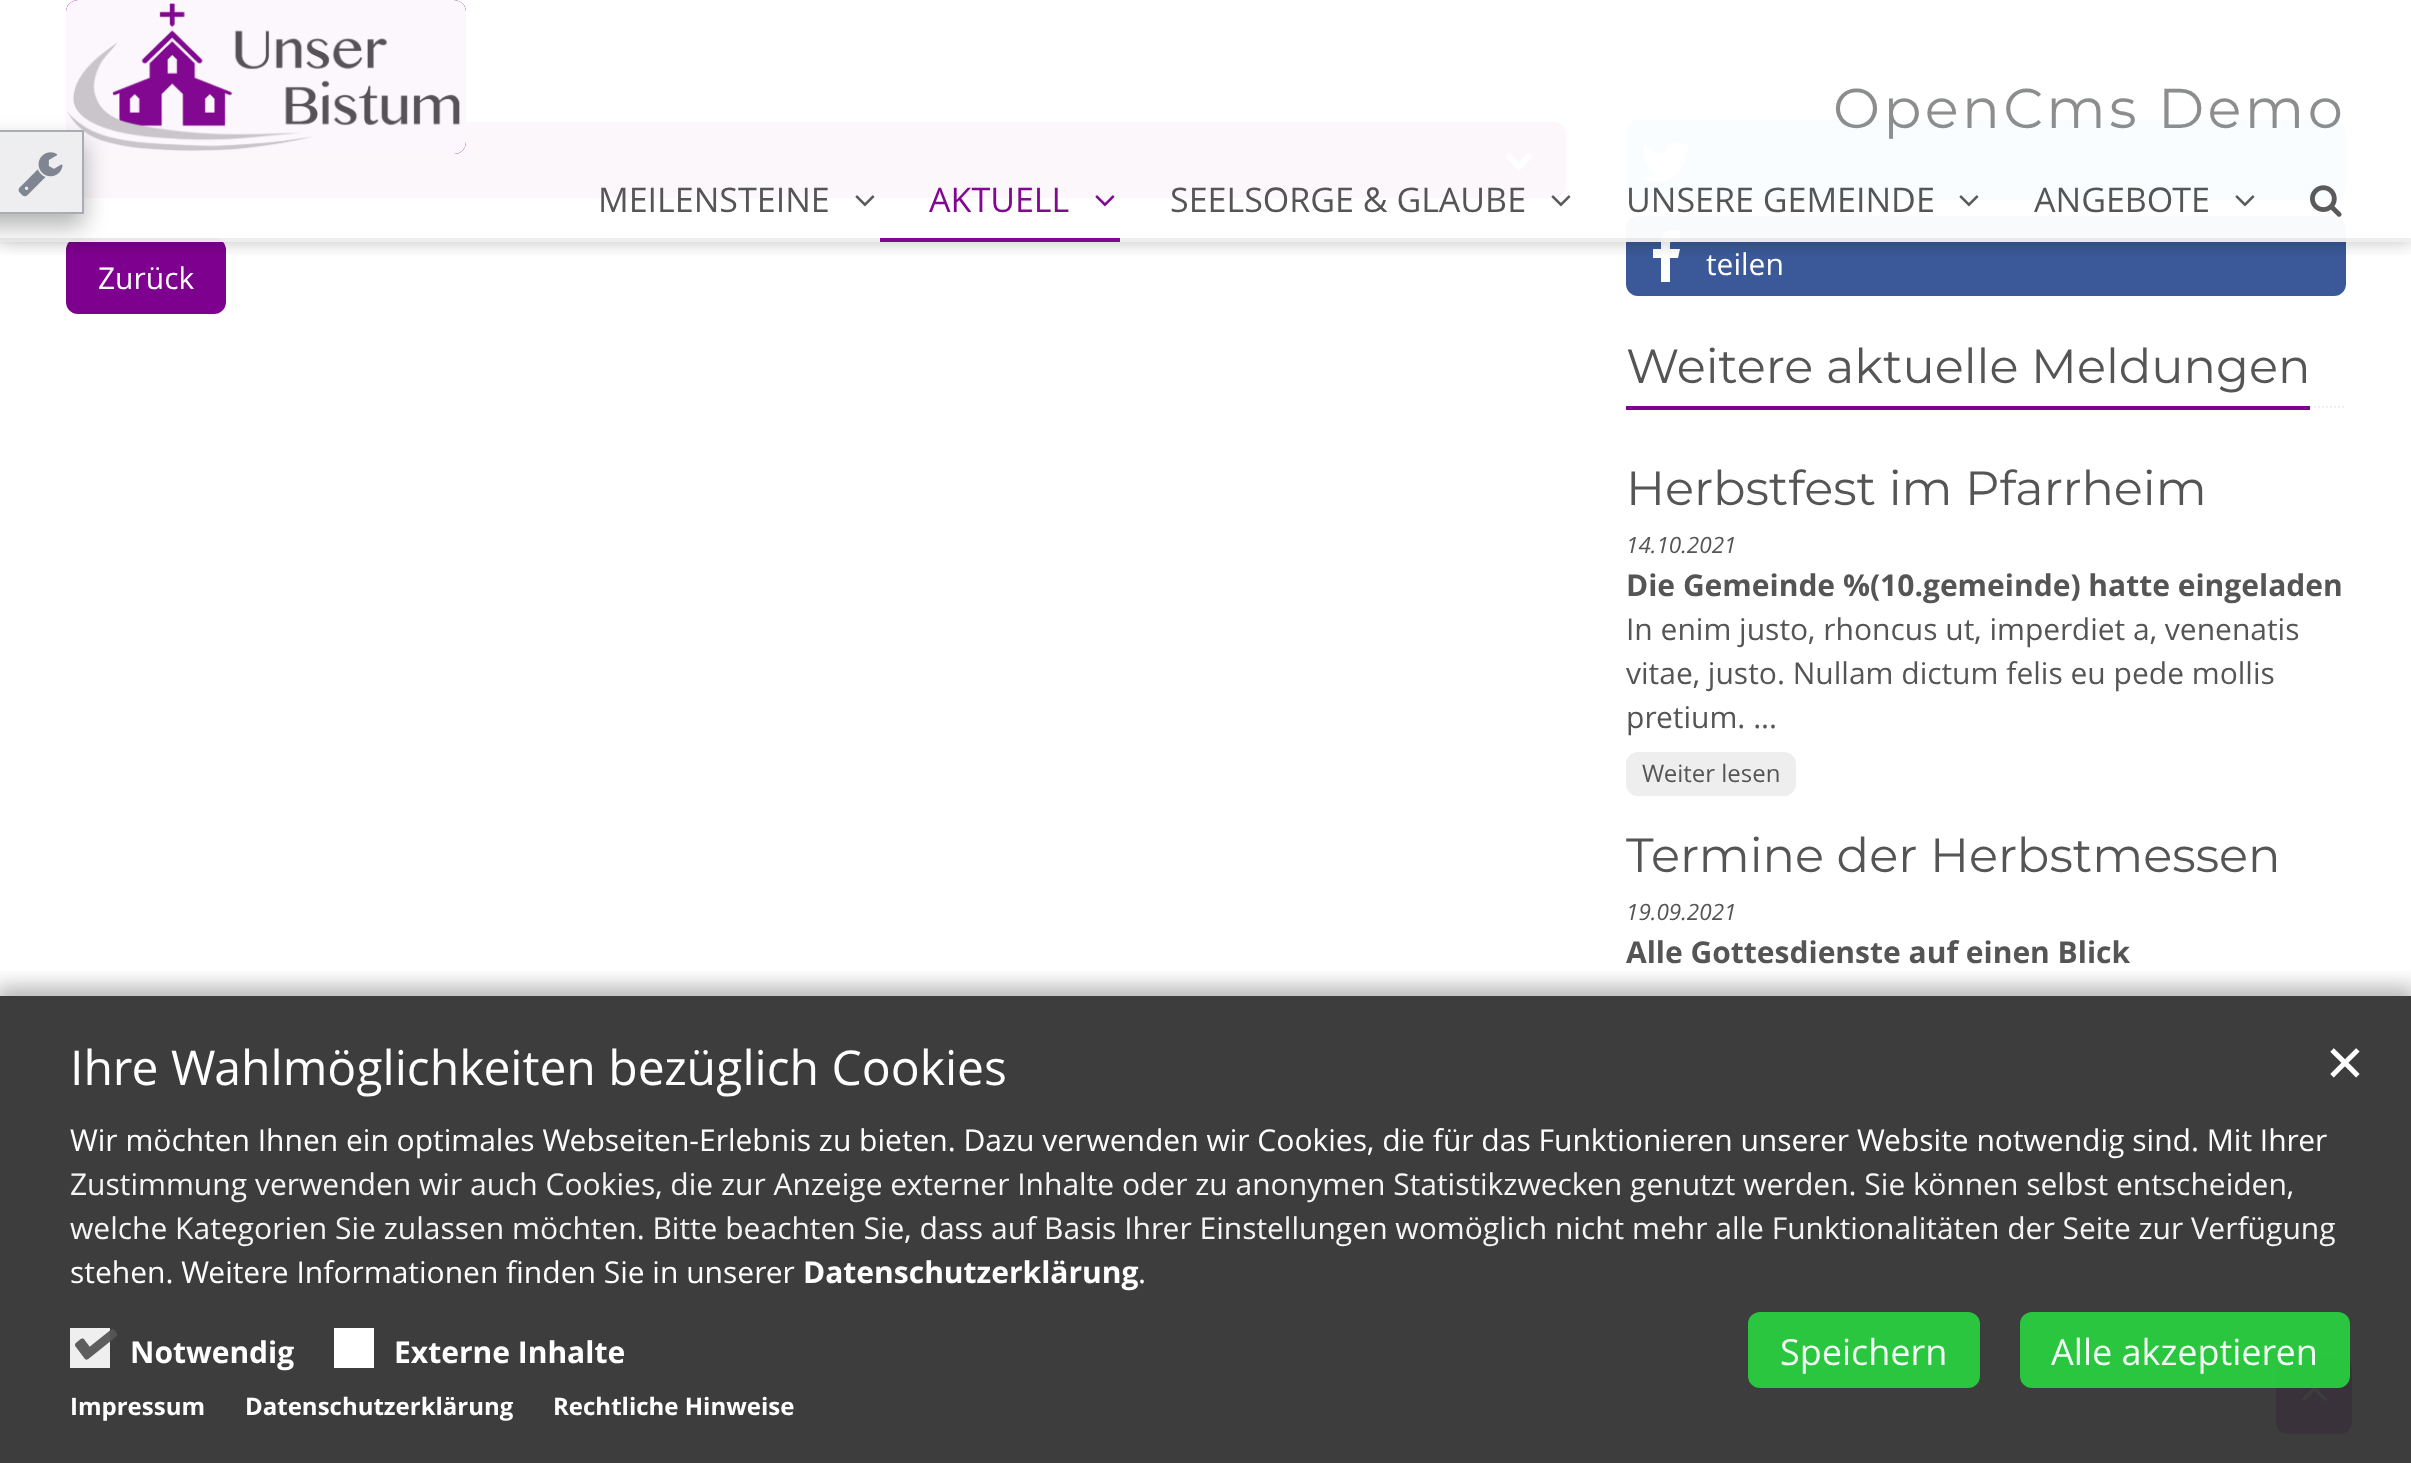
async function draw(canvas) {
  canvas.width = 2411;
  canvas.height = 1463;
  const ctx = canvas.getContext('2d');
  ctx.miterLimit = 4;
  ctx.fontKerning = 'normal';
  function label(s, x, y, font, color) {
    ctx.font = font;
    ctx.fillStyle = color;
    ctx.fillText(s, x, y);
  }
  function rect(x, y, w, h, color) {
    ctx.fillStyle = color;
    ctx.fillRect(x, y, w, h);
  }
  function roundedRect(x, y, w, h, r, color) {
    ctx.fillStyle = color;
    ctx.beginPath();
    ctx.roundRect(x, y, w, h, r);
    ctx.fill();
  }
  async function image(src, x, y, w, h) {
    const img = new Image();
    img.src = src;
    await img.decode();
    ctx.drawImage(img, x, y, w, h);
  }
  let path;

  rect(0, 0, 2411, 1463, '#fff');
  rect(0, 0, 2411, 80, '#eee');
  roundedRect(66, 122, 1500, 76, 12, '#7e008e');
  await image('assets/img8.png', 1505, 153, 28, 18);
  roundedRect(66, 238, 160, 76, 12, '#7e008e');
  roundedRect(1626, 120, 720, 80, 12, '#55acee');
  await image('assets/img9.png', 1641, 142, 50, 40);
  roundedRect(1626, 216, 720, 80, 12, '#3b5998');
  ctx.fillStyle = '#fff';
  path = new Path2D('M1680 230V239C1670 239 1670 239 1670 249H1680L1678 258H1670V282H1661V258H1653V249H1661V239C1663 230 1672 229 1680 230Z');
  ctx.fill(path);
  ctx.save();
  ctx.beginPath();
  ctx.rect(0, 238, 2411, 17);
  ctx.clip();
  ctx.fillStyle = '#0000004a';
  ctx.filter = 'blur(10px)';
  ctx.beginPath();
  ctx.rect(-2, -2, 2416, 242);
  ctx.fill();
  ctx.filter = 'none';
  ctx.restore();
  rect(0, 0, 2411, 238, '#fffffff7');
  roundedRect(66, 0, 400, 154, 12, '#7e008ef7');
  await image('assets/img2.png', 66, 0, 400, 154);
  rect(0, 238, 2411, 4, '#eeeeeef7');
  ctx.fillStyle = '#0000004d';
  ctx.filter = 'blur(12px)';
  ctx.beginPath();
  ctx.rect(-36, 142, 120, 84);
  ctx.fill();
  ctx.filter = 'none';
  rect(0, 130, 84, 2, '#a8adb4');
  rect(82, 130, 2, 84, '#a8adb4');
  rect(0, 212, 84, 2, '#a8adb4');
  rect(0, 132, 82, 80, '#eeeef0');
  await image('assets/img1.png', 18, 152, 45, 45);
  ctx.letterSpacing = '3.4px';
  label('OpenCms Demo', 1833, 128, '56px Montserrat', '#8c8d8d');
  ctx.letterSpacing = '0px';
  label('MEILENSTEINE', 598, 212, '34px Open Sans', '#555');
  await image('assets/img3.png', 855, 195, 20, 12);
  rect(880, 238, 240, 4, '#820891');
  label('AKTUELL', 929, 212, '34px Open Sans', '#820891');
  await image('assets/img4.png', 1095, 195, 20, 12);
  label('SEELSORGE & GLAUBE', 1170, 212, '34px Open Sans', '#555');
  await image('assets/img5.png', 1551, 195, 20, 12);
  label('UNSERE GEMEINDE', 1626, 212, '34px Open Sans', '#555');
  await image('assets/img6.png', 1959, 195, 20, 12);
  label('ANGEBOTE', 2034, 212, '34px Open Sans', '#555');
  await image('assets/img6.png', 2235, 195, 20, 12);
  await image('assets/img7.png', 2310, 185, 32, 32);
  label('Zurück', 98, 289, '30px Open Sans', '#fff');
  label('teilen', 1706, 275, '30px Open Sans', '#fff');
  path = new Path2D('M1626 407H2346');
  ctx.strokeStyle = '#eee';
  ctx.lineWidth = 2;
  ctx.setLineDash([2, 2]);
  ctx.stroke(path);
  rect(1626, 406, 684, 4, '#7e008e');
  label('Weitere aktuelle Meldungen', 1626, 383, '48px Montserrat', '#555');
  label('Herbstfest im Pfarrheim', 1626, 505, '48px Montserrat', '#555');
  label('14.10.2021', 1626, 553, 'italic 22.5px Open Sans', '#555');
  label('Die Gemeinde %(10.gemeinde) hatte eingeladen', 1626, 596, 'bold 30px Open Sans', '#555');
  label('In enim justo, rhoncus ut, imperdiet a, venenatis', 1626, 640, '30px Open Sans', '#555');
  label('vitae, justo. Nullam dictum felis eu pede mollis', 1626, 684, '30px Open Sans', '#555');
  label('pretium. ...', 1626, 728, '30px Open Sans', '#555');
  roundedRect(1626, 752, 170, 44, 12, '#eee');
  label('Weiter lesen', 1642, 782, '24px Open Sans', '#555');
  label('Termine der Herbstmessen', 1626, 872, '48px Montserrat', '#555');
  label('19.09.2021', 1626, 920, 'italic 22.5px Open Sans', '#555');
  label('Alle Gottesdienste auf einen Blick', 1626, 963, 'bold 30px Open Sans', '#555');
  roundedRect(1626, 1074, 170, 44, 12, '#eee');
  roundedRect(1626, 1458, 170, 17, 12, '#eee');
  roundedRect(2276, 1358, 76, 76, 12, '#bb29bb');
  await image('assets/img11.png', 2302, 1386, 26, 16);
  ctx.save();
  ctx.beginPath();
  ctx.rect(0, 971, 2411, 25);
  ctx.clip();
  ctx.fillStyle = '#00000047';
  ctx.filter = 'blur(10px)';
  ctx.beginPath();
  ctx.rect(-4, 986, 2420, 476);
  ctx.fill();
  ctx.filter = 'none';
  ctx.restore();
  rect(0, 996, 2411, 467, '#333333f2');
  label('Ihre Wahlmöglichkeiten bezüglich Cookies', 70, 1085, '48px Open Sans', '#fff');
  label('✕', 2324, 1081, '50px DejaVu Sans', '#fff');
  label('Wir möchten Ihnen ein optimales Webseiten-Erlebnis zu bieten. Dazu verwenden wir Cookies, die für das Funktionieren unserer Website notwendig sind. Mit Ihrer', 70, 1151, '30px Open Sans', '#fff');
  label('Zustimmung verwenden wir auch Cookies, die zur Anzeige externer Inhalte oder zu anonymen Statistikzwecken genutzt werden. Sie können selbst entscheiden,', 70, 1195, '30px Open Sans', '#f5f5f5');
  label('welche Kategorien Sie zulassen möchten. Bitte beachten Sie, dass auf Basis Ihrer Einstellungen womöglich nicht mehr alle Funktionalitäten der Seite zur Verfügung', 70, 1239, '30px Open Sans', '#f5f5f5');
  label('stehen. Weitere Informationen finden Sie in unserer', 70, 1283, '30px Open Sans', '#fff');
  label('Datenschutzerklärung', 803, 1283, 'bold 30px Open Sans', '#fff');
  label('.', 1138, 1283, '30px Open Sans', '#fff');
  rect(70, 1328, 40, 40, '#efefef');
  await image('assets/img10.png', 75, 1329, 42, 31);
  label('Notwendig', 130, 1363, 'bold 30px Open Sans', '#fff');
  rect(334, 1328, 40, 40, '#fff');
  label('Externe Inhalte', 394, 1363, 'bold 30px Open Sans', '#fff');
  roundedRect(1748, 1312, 232, 76, 12, '#29ce3ff2');
  label('Speichern', 1780, 1365, '36px Open Sans', '#f4fcf5');
  roundedRect(2020, 1312, 330, 76, 12, '#29ce3ff2');
  label('Alle akzeptieren', 2051, 1365, '36px Open Sans', '#f4fcf5');
  label('Impressum', 70, 1415, 'bold 24px Open Sans', '#fff');
  label('Datenschutzerklärung', 245, 1415, 'bold 24px Open Sans', '#fff');
  label('Rechtliche Hinweise', 553, 1415, 'bold 24px Open Sans', '#fff');
}

draw(document.querySelector('canvas'));
